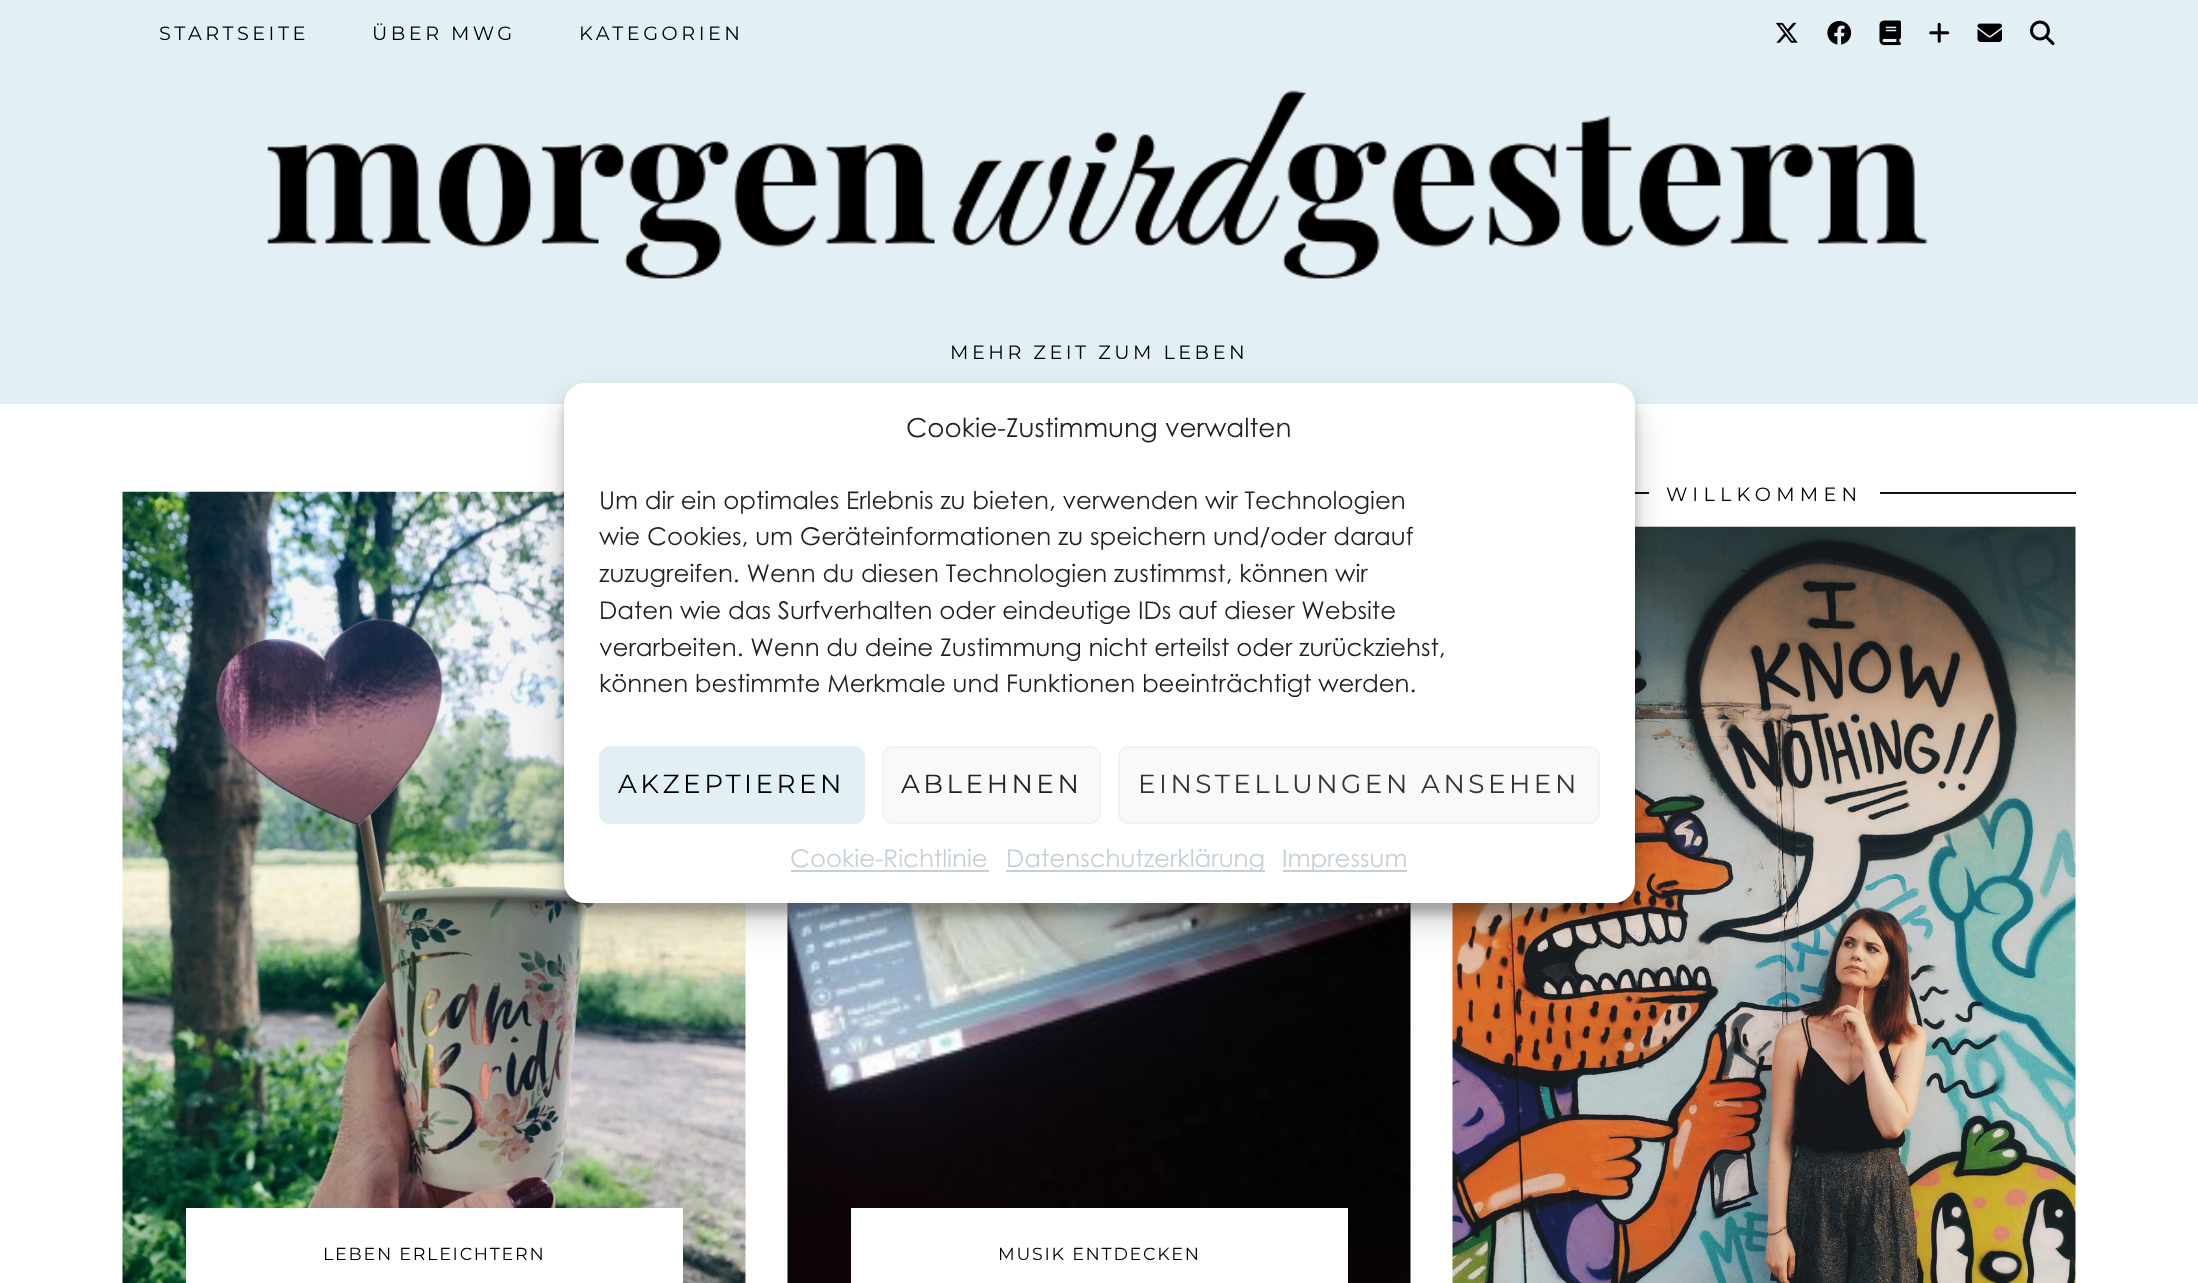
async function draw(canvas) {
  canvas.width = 2198;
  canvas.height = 1283;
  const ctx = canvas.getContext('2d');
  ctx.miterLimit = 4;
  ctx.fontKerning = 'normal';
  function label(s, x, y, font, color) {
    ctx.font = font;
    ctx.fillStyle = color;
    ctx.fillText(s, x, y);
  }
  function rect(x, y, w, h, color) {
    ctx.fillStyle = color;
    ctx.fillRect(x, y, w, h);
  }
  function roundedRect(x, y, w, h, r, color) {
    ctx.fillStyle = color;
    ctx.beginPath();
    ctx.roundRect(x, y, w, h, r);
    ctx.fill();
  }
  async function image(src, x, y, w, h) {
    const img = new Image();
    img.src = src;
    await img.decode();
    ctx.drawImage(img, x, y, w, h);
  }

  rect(0, 0, 2198, 1283, '#fff');
  rect(0, 0, 2198, 404, '#e2eff5');
  ctx.letterSpacing = '3.5px';
  label('STARTSEITE', 159, 40, '100 19.25px Montserrat', '#000');
  label('ÜBER MWG', 372, 40, '100 19.25px Montserrat', '#000');
  label('KATEGORIEN', 579, 40, '100 19.25px Montserrat', '#000');
  await image('assets/img1.png', 1776, 22, 22, 21);
  await image('assets/img2.png', 1827, 20, 25, 25);
  await image('assets/img3.png', 1879, 20, 22, 26);
  await image('assets/img4.png', 1929, 22, 21, 21);
  await image('assets/img5.png', 1977, 23, 25, 19);
  await image('assets/img6.png', 2030, 20, 25, 25);
  await image('assets/img7.png', 267, 90, 1661, 189);
  label('MEHR ZEIT ZUM LEBEN', 950, 359, '100 19.25px Montserrat', '#000');
  rect(1635, 492, 441, 2, '#111');
  rect(1649, 492, 231, 2, '#fff');
  await image('assets/img8.png', 1452, 526, 624, 757);
  await image('assets/img9.png', 122, 491, 624, 792);
  await image('assets/img10.png', 787, 903, 624, 380);
  ctx.fillStyle = '#0000003b';
  ctx.filter = 'blur(5px)';
  ctx.beginPath();
  ctx.roundRect(564, 394, 1071, 520, 21);
  ctx.fill();
  ctx.filter = 'none';
  ctx.fillStyle = '#00000030';
  ctx.filter = 'blur(17.5px)';
  ctx.beginPath();
  ctx.roundRect(564, 401, 1071, 520, 21);
  ctx.fill();
  ctx.filter = 'none';
  roundedRect(564, 383, 1071, 520, 21, '#fff');
  ctx.letterSpacing = '0px';
  label('Cookie-Zustimmung verwalten', 906, 437, '26.25px Century Gothic', '#222');
  label('Um dir ein optimales Erlebnis zu bieten, verwenden wir Technologien', 599, 509, '24.5px Century Gothic', '#222');
  label('wie Cookies, um Geräteinformationen zu speichern und/oder darauf', 599, 545, '24.5px Century Gothic', '#222');
  label('zuzugreifen. Wenn du diesen Technologien zustimmst, können wir', 599, 582, '24.5px Century Gothic', '#222');
  label('Daten wie das Surfverhalten oder eindeutige IDs auf dieser Website', 599, 619, '24.5px Century Gothic', '#222');
  label('verarbeiten. Wenn du deine Zustimmung nicht erteilst oder zurückziehst,', 599, 656, '24.5px Century Gothic', '#222');
  label('können bestimmte Merkmale und Funktionen beeinträchtigt werden.', 599, 692, '24.5px Century Gothic', '#222');
  ctx.fillStyle = '#e2eff5';
  ctx.beginPath();
  ctx.roundRect(600, 747, 264, 76, 10);
  ctx.fill();
  ctx.strokeStyle = '#e2eff5';
  ctx.lineWidth = 2;
  ctx.stroke();
  ctx.letterSpacing = '3.5px';
  label('AKZEPTIEREN', 618, 793, '100 26.25px Montserrat', '#000');
  ctx.fillStyle = '#f9f9f9';
  ctx.beginPath();
  ctx.roundRect(883, 747, 217, 76, 10);
  ctx.fill();
  ctx.strokeStyle = '#f2f2f2';
  ctx.stroke();
  label('ABLEHNEN', 901, 793, '100 26.25px Montserrat', '#222');
  ctx.fillStyle = '#f9f9f9';
  ctx.beginPath();
  ctx.roundRect(1119, 747, 480, 76, 10);
  ctx.fill();
  ctx.stroke();
  label('EINSTELLUNGEN ANSEHEN', 1138, 793, '100 26.25px Montserrat', '#333');
  ctx.letterSpacing = '0px';
  label('Cookie-Richtlinie', 790, 867, '24.5px Century Gothic', '#c5cfd6');
  rect(791, 870, 198, 2, '#c5cfd6');
  rect(1006, 870, 259, 2, '#c5cfd6');
  label('Datenschutzerklärung', 1006, 867, '24.5px Century Gothic', '#c5cfd6');
  rect(1283, 870, 124, 2, '#c5cfd6');
  label('Impressum', 1282, 867, '24.5px Century Gothic', '#c5cfd6');
  ctx.letterSpacing = '5.25px';
  label('WILLKOMMEN', 1666, 501, '100 19.25px Montserrat', '#000');
  rect(186, 1208, 497, 75, '#fff');
  ctx.letterSpacing = '1.75px';
  label('LEBEN ERLEICHTERN', 323, 1260, '100 17.5px Montserrat', '#000');
  rect(851, 1208, 497, 75, '#fff');
  label('MUSIK ENTDECKEN', 998, 1260, '100 17.5px Montserrat', '#000');
}

draw(document.querySelector('canvas'));
